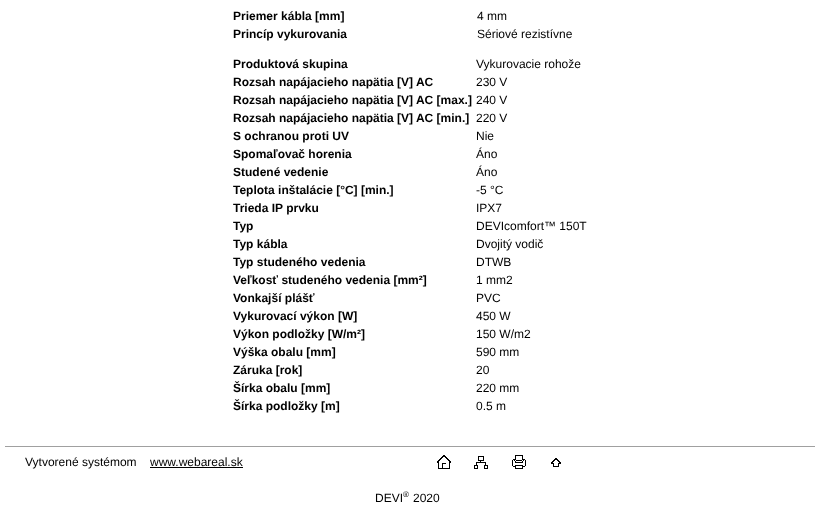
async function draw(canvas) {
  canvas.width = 815;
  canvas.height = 505;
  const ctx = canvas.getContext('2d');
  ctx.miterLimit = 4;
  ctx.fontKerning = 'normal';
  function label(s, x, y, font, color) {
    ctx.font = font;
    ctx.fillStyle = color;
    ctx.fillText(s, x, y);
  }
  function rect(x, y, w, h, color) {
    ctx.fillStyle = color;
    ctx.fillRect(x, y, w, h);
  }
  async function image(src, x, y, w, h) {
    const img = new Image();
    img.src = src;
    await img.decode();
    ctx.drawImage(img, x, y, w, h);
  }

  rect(0, 0, 815, 505, '#fff');
  label('Priemer kábla [mm]', 233, 20, 'bold 12px Liberation Sans', '#000');
  label('4 mm', 477, 20, '12px Liberation Sans', '#000');
  label('Princíp vykurovania', 233, 38, 'bold 12px Liberation Sans', '#000');
  label('Sériové rezistívne', 477, 38, '12px Liberation Sans', '#000');
  label('Produktová skupina', 233, 68, 'bold 12px Liberation Sans', '#000');
  label('Vykurovacie rohože', 476, 68, '12px Liberation Sans', '#000');
  label('Rozsah napájacieho napätia [V] AC', 233, 86, 'bold 12px Liberation Sans', '#000');
  label('230 V', 476, 86, '12px Liberation Sans', '#000');
  label('Rozsah napájacieho napätia [V] AC [max.]', 233, 104, 'bold 12px Liberation Sans', '#000');
  label('240 V', 476, 104, '12px Liberation Sans', '#000');
  label('Rozsah napájacieho napätia [V] AC [min.]', 233, 122, 'bold 12px Liberation Sans', '#000');
  label('220 V', 476, 122, '12px Liberation Sans', '#000');
  label('S ochranou proti UV', 233, 140, 'bold 12px Liberation Sans', '#000');
  label('Nie', 476, 140, '12px Liberation Sans', '#000');
  label('Spomaľovač horenia', 233, 158, 'bold 12px Liberation Sans', '#000');
  label('Áno', 476, 158, '12px Liberation Sans', '#000');
  label('Studené vedenie', 233, 176, 'bold 12px Liberation Sans', '#000');
  label('Áno', 476, 176, '12px Liberation Sans', '#000');
  label('Teplota inštalácie [°C] [min.]', 233, 194, 'bold 12px Liberation Sans', '#000');
  label('-5 °C', 476, 194, '12px Liberation Sans', '#000');
  label('Trieda IP prvku', 233, 212, 'bold 12px Liberation Sans', '#000');
  label('IPX7', 476, 212, '12px Liberation Sans', '#000');
  label('Typ', 233, 230, 'bold 12px Liberation Sans', '#000');
  label('DEVIcomfort™ 150T', 476, 230, '12px Liberation Sans', '#000');
  label('Typ kábla', 233, 248, 'bold 12px Liberation Sans', '#000');
  label('Dvojitý vodič', 476, 248, '12px Liberation Sans', '#000');
  label('Typ studeného vedenia', 233, 266, 'bold 12px Liberation Sans', '#000');
  label('DTWB', 476, 266, '12px Liberation Sans', '#000');
  label('Veľkosť studeného vedenia [mm²]', 233, 284, 'bold 12px Liberation Sans', '#000');
  label('1 mm2', 476, 284, '12px Liberation Sans', '#000');
  label('Vonkajší plášť', 233, 302, 'bold 12px Liberation Sans', '#000');
  label('PVC', 476, 302, '12px Liberation Sans', '#000');
  label('Vykurovací výkon [W]', 233, 320, 'bold 12px Liberation Sans', '#000');
  label('450 W', 476, 320, '12px Liberation Sans', '#000');
  label('Výkon podložky [W/m²]', 233, 338, 'bold 12px Liberation Sans', '#000');
  label('150 W/m2', 476, 338, '12px Liberation Sans', '#000');
  label('Výška obalu [mm]', 233, 356, 'bold 12px Liberation Sans', '#000');
  label('590 mm', 476, 356, '12px Liberation Sans', '#000');
  label('Záruka [rok]', 233, 374, 'bold 12px Liberation Sans', '#000');
  label('20', 476, 374, '12px Liberation Sans', '#000');
  label('Šírka obalu [mm]', 233, 392, 'bold 12px Liberation Sans', '#000');
  label('220 mm', 476, 392, '12px Liberation Sans', '#000');
  label('Šírka podložky [m]', 233, 410, 'bold 12px Liberation Sans', '#000');
  label('0.5 m', 476, 410, '12px Liberation Sans', '#000');
  rect(5, 446, 810, 1, '#a0a0a0');
  label('Vytvorené systémom', 25, 466, '12px Liberation Sans', '#000');
  label('www.webareal.sk', 150, 466, '12px Liberation Sans', '#000');
  rect(150, 467, 93, 1, '#000');
  await image('assets/img1.png', 437, 455, 14, 14);
  await image('assets/img2.png', 474, 456, 14, 13);
  await image('assets/img3.png', 512, 455, 14, 14);
  await image('assets/img4.png', 551, 458, 10, 9);
  label('DEVI', 375, 502, '12px Liberation Sans', '#000');
  label('®', 403, 497, '8px Liberation Sans', '#000');
  label('2020', 413, 502, '12px Liberation Sans', '#000');
}

draw(document.querySelector('canvas'));
